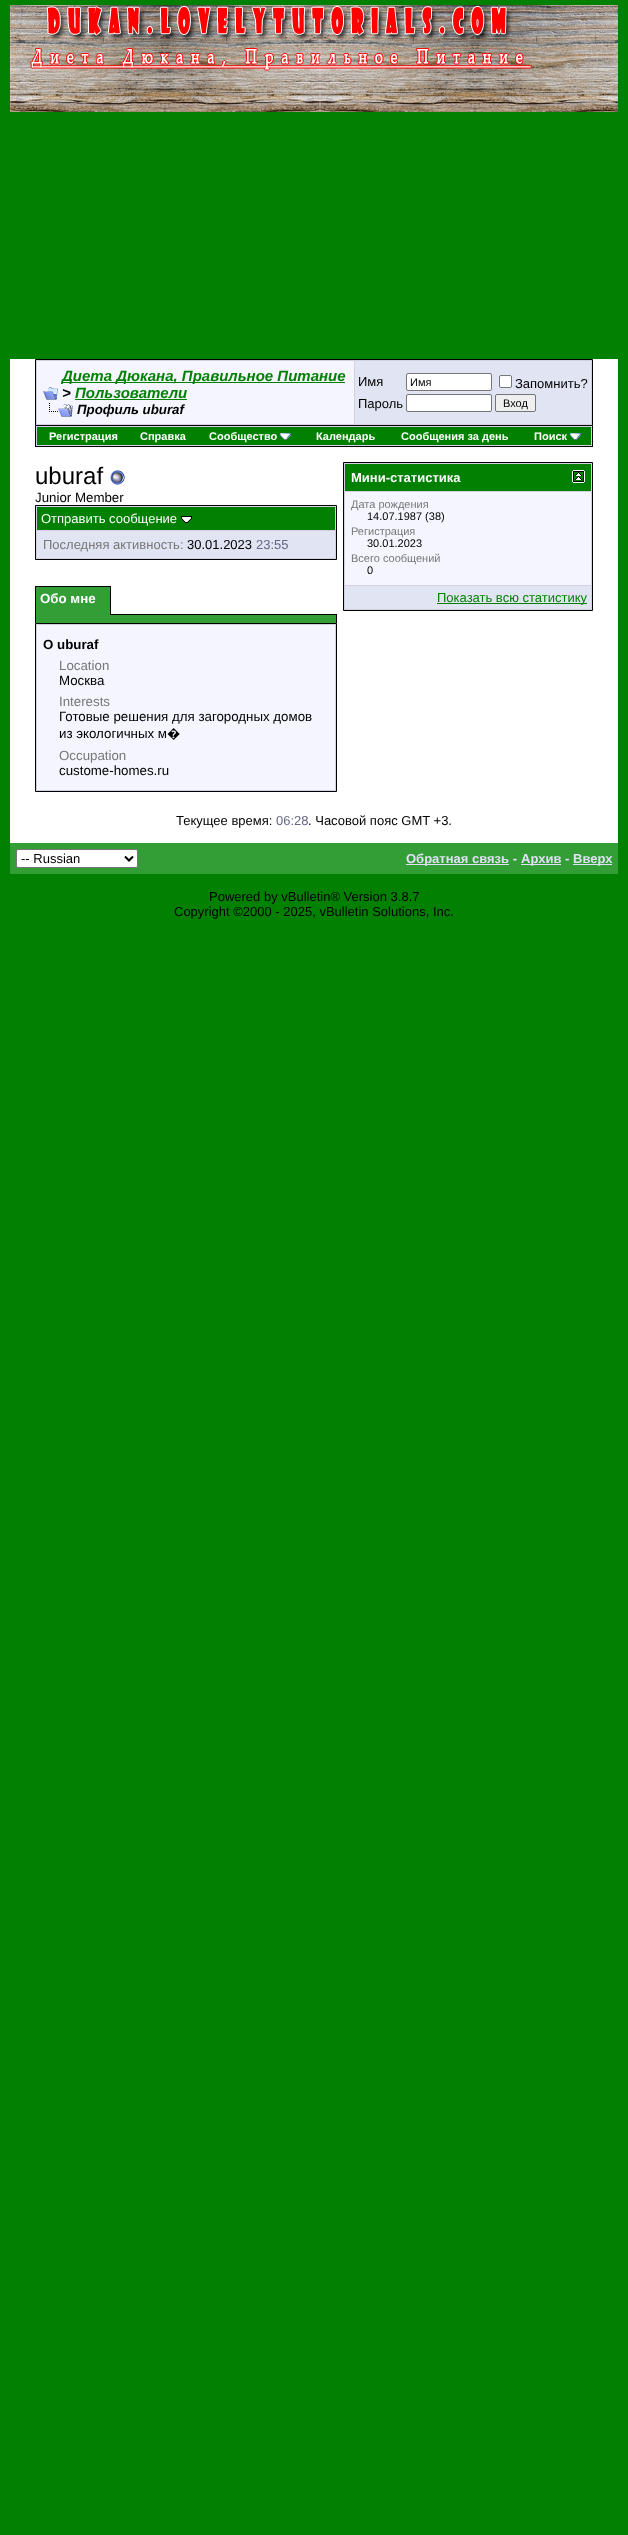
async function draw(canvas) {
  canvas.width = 628;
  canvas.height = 2535;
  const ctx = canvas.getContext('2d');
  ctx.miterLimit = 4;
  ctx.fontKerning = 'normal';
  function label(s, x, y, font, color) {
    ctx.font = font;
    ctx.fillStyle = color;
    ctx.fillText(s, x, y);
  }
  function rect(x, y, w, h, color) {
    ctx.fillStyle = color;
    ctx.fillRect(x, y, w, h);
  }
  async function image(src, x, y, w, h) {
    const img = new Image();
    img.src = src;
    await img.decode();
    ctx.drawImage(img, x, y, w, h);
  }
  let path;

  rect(0, 0, 628, 2535, '#028002');
  await image('assets/img1.png', 10, 5, 608, 107);
  await image('assets/img2.png', 30, 6, 502, 65);
  rect(10, 359, 608, 484, '#fff');
  ctx.fillStyle = '#d1d1e1';
  ctx.beginPath();
  ctx.rect(35.5, 359.5, 557, 66);
  ctx.fill();
  ctx.strokeStyle = '#000';
  ctx.stroke();
  rect(37, 361, 317, 63, '#f5f5ff');
  await image('assets/img3.png', 43, 387, 15, 13);
  rect(62, 382, 283, 1, '#028002');
  label('Диета Дюкана, Правильное Питание', 62, 381, 'italic bold 15px Liberation Sans', '#028002');
  label('>', 62, 398, 'italic bold 15px Liberation Sans', '#000');
  label('Пользователи', 75, 398, 'italic bold 15px Liberation Sans', '#028002');
  rect(75, 399, 112, 1, '#028002');
  await image('assets/img4.png', 49, 403, 24, 14);
  label('Профиль uburaf', 77, 414, 'italic bold 13.3px Liberation Sans', '#000');
  rect(355, 361, 236, 63, '#e1e4f2');
  label('Имя', 358, 386, '13px Liberation Sans', '#000');
  ctx.fillStyle = '#fff';
  ctx.beginPath();
  ctx.roundRect(406.5, 373.5, 85, 17, 1.5);
  ctx.fill();
  ctx.strokeStyle = '#767676';
  ctx.stroke();
  label('Имя', 410, 386, '11px Liberation Sans', '#000');
  ctx.fillStyle = '#fff';
  ctx.beginPath();
  ctx.roundRect(499.5, 375.5, 12, 12, 1.5);
  ctx.fill();
  ctx.stroke();
  label('Запомнить?', 515, 388, '13px Liberation Sans', '#000');
  label('Пароль', 358, 408, '13px Liberation Sans', '#000');
  ctx.fillStyle = '#fff';
  ctx.beginPath();
  ctx.roundRect(406.5, 394.5, 85, 17, 1.5);
  ctx.fill();
  ctx.stroke();
  ctx.fillStyle = '#efefef';
  ctx.beginPath();
  ctx.roundRect(495.5, 394.5, 40, 17, 1.5);
  ctx.fill();
  ctx.stroke();
  label('Вход', 503, 407, '11px Liberation Sans', '#000');
  rect(36, 426, 556, 20, '#d1d1e1');
  rect(592, 426, 1, 21, '#000');
  rect(35, 446, 558, 1, '#000');
  rect(35, 426, 1, 21, '#000');
  rect(37, 427, 554, 18, '#028002');
  label('Регистрация', 49, 440, 'bold 11px Liberation Sans', '#fff');
  label('Справка', 140, 440, 'bold 11px Liberation Sans', '#fff');
  label('Сообщество', 209, 440, 'bold 11px Liberation Sans', '#fff');
  await image('assets/img5.png', 280, 433, 11, 7);
  label('Календарь', 316, 440, 'bold 11px Liberation Sans', '#fff');
  label('Сообщения за день', 401, 440, 'bold 11px Liberation Sans', '#fff');
  label('Поиск', 534, 440, 'bold 11px Liberation Sans', '#fff');
  await image('assets/img5.png', 570, 433, 11, 7);
  label('uburaf', 35, 484, '24px Liberation Sans', '#000');
  await image('assets/img6.png', 110, 470, 15, 15);
  label('Junior Member', 35, 502, '13.3px Liberation Sans', '#000');
  ctx.fillStyle = '#d1d1e1';
  ctx.beginPath();
  ctx.rect(35.5, 505.5, 301, 54);
  ctx.fill();
  ctx.strokeStyle = '#000';
  ctx.stroke();
  rect(37, 507, 298, 23, '#028002');
  label('Отправить сообщение', 41, 523, '13px Liberation Sans', '#fff');
  await image('assets/img7.png', 181, 516, 11, 7);
  rect(37, 531, 298, 27, '#e1e4f2');
  label('Последняя активность:', 43, 549, '13px Liberation Sans', '#777');
  label('30.01.2023', 187, 549, '13px Liberation Sans', '#000');
  label('23:55', 256, 549, '13px Liberation Sans', '#666686');
  rect(36, 587, 74, 28, '#339e36');
  rect(35, 586, 76, 1, '#000');
  rect(110, 586, 1, 29, '#000');
  rect(35, 614, 1, 9, '#000');
  rect(35, 586, 1, 29, '#000');
  label('Обо мне', 40, 603, 'bold 13.3px Liberation Sans', '#fff');
  rect(36, 615, 300, 8, '#339e36');
  rect(111, 614, 226, 1, '#000');
  rect(336, 614, 1, 9, '#000');
  ctx.fillStyle = '#d1d1e1';
  ctx.beginPath();
  ctx.rect(35.5, 623.5, 301, 168);
  ctx.fill();
  ctx.stroke();
  rect(37, 625, 298, 165, '#f5f5ff');
  label('О uburaf', 43, 649, 'bold 13.3px Liberation Sans', '#000');
  label('Location', 59, 670, '13.3px Liberation Sans', '#777');
  label('Москва', 59, 685, '13.3px Liberation Sans', '#000');
  label('Interests', 59, 706, '13.3px Liberation Sans', '#777');
  label('Готовые решения для загородных домов', 59, 721, '13.3px Liberation Sans', '#000');
  label('из экологичных м', 59, 738, '13.3px Liberation Sans', '#000');
  label('�', 167, 738, '13.3px Noto Sans', '#000');
  label('Occupation', 59, 760, '13.3px Liberation Sans', '#777');
  label('custome-homes.ru', 59, 775, '13.3px Liberation Sans', '#000');
  ctx.fillStyle = '#d1d1e1';
  ctx.beginPath();
  ctx.rect(343.5, 462.5, 249, 148);
  ctx.fill();
  ctx.stroke();
  rect(345, 464, 246, 27, '#028002');
  label('Мини-статистика', 351, 482, 'bold 13px Liberation Sans', '#fff');
  await image('assets/img8.png', 572, 470, 13, 13);
  rect(345, 492, 246, 93, '#f5f5ff');
  label('Дата рождения', 351, 508, '11px Liberation Sans', '#777');
  label('14.07.1987 (38)', 367, 520, '11px Liberation Sans', '#000');
  label('Регистрация', 351, 535, '11px Liberation Sans', '#777');
  label('30.01.2023', 367, 547, '11px Liberation Sans', '#000');
  label('Всего сообщений', 351, 562, '11px Liberation Sans', '#777');
  label('0', 367, 574, '11px Liberation Sans', '#000');
  rect(345, 586, 246, 23, '#e1e4f2');
  rect(437, 603, 150, 1, '#028002');
  label('Показать всю статистику', 437, 602, '13px Liberation Sans', '#028002');
  label('Текущее время:', 176, 825, '13px Liberation Sans', '#000');
  label('06:28', 276, 825, '13px Liberation Sans', '#666686');
  label('. Часовой пояс GMT +3.', 308, 825, '13px Liberation Sans', '#000');
  rect(10, 843, 608, 31, '#339e36');
  ctx.fillStyle = '#fff';
  ctx.beginPath();
  ctx.roundRect(16.5, 849.5, 121, 18, 1.5);
  ctx.fill();
  ctx.strokeStyle = '#767676';
  ctx.stroke();
  path = new Path2D('M125 856.5L129 860.5L133 856.5');
  ctx.strokeStyle = '#000';
  ctx.lineWidth = 2;
  ctx.stroke(path);
  label('-- Russian', 21, 863, '13px Liberation Sans', '#000');
  rect(406, 864, 103, 1, '#e0e0f6');
  label('Обратная связь -', 406, 863, 'bold 13px Liberation Sans', '#e0e0f6');
  rect(521, 864, 40, 1, '#e0e0f6');
  label('Архив -', 521, 863, 'bold 13px Liberation Sans', '#e0e0f6');
  rect(573, 864, 39, 1, '#e0e0f6');
  label('Вверх', 573, 863, 'bold 13px Liberation Sans', '#e0e0f6');
  label('Powered by vBulletin® Version 3.8.7', 209, 901, '13px Liberation Sans', '#000');
  label('Copyright ©2000 - 2025, vBulletin Solutions, Inc.', 174, 916, '13px Liberation Sans', '#000');
}

draw(document.querySelector('canvas'));
